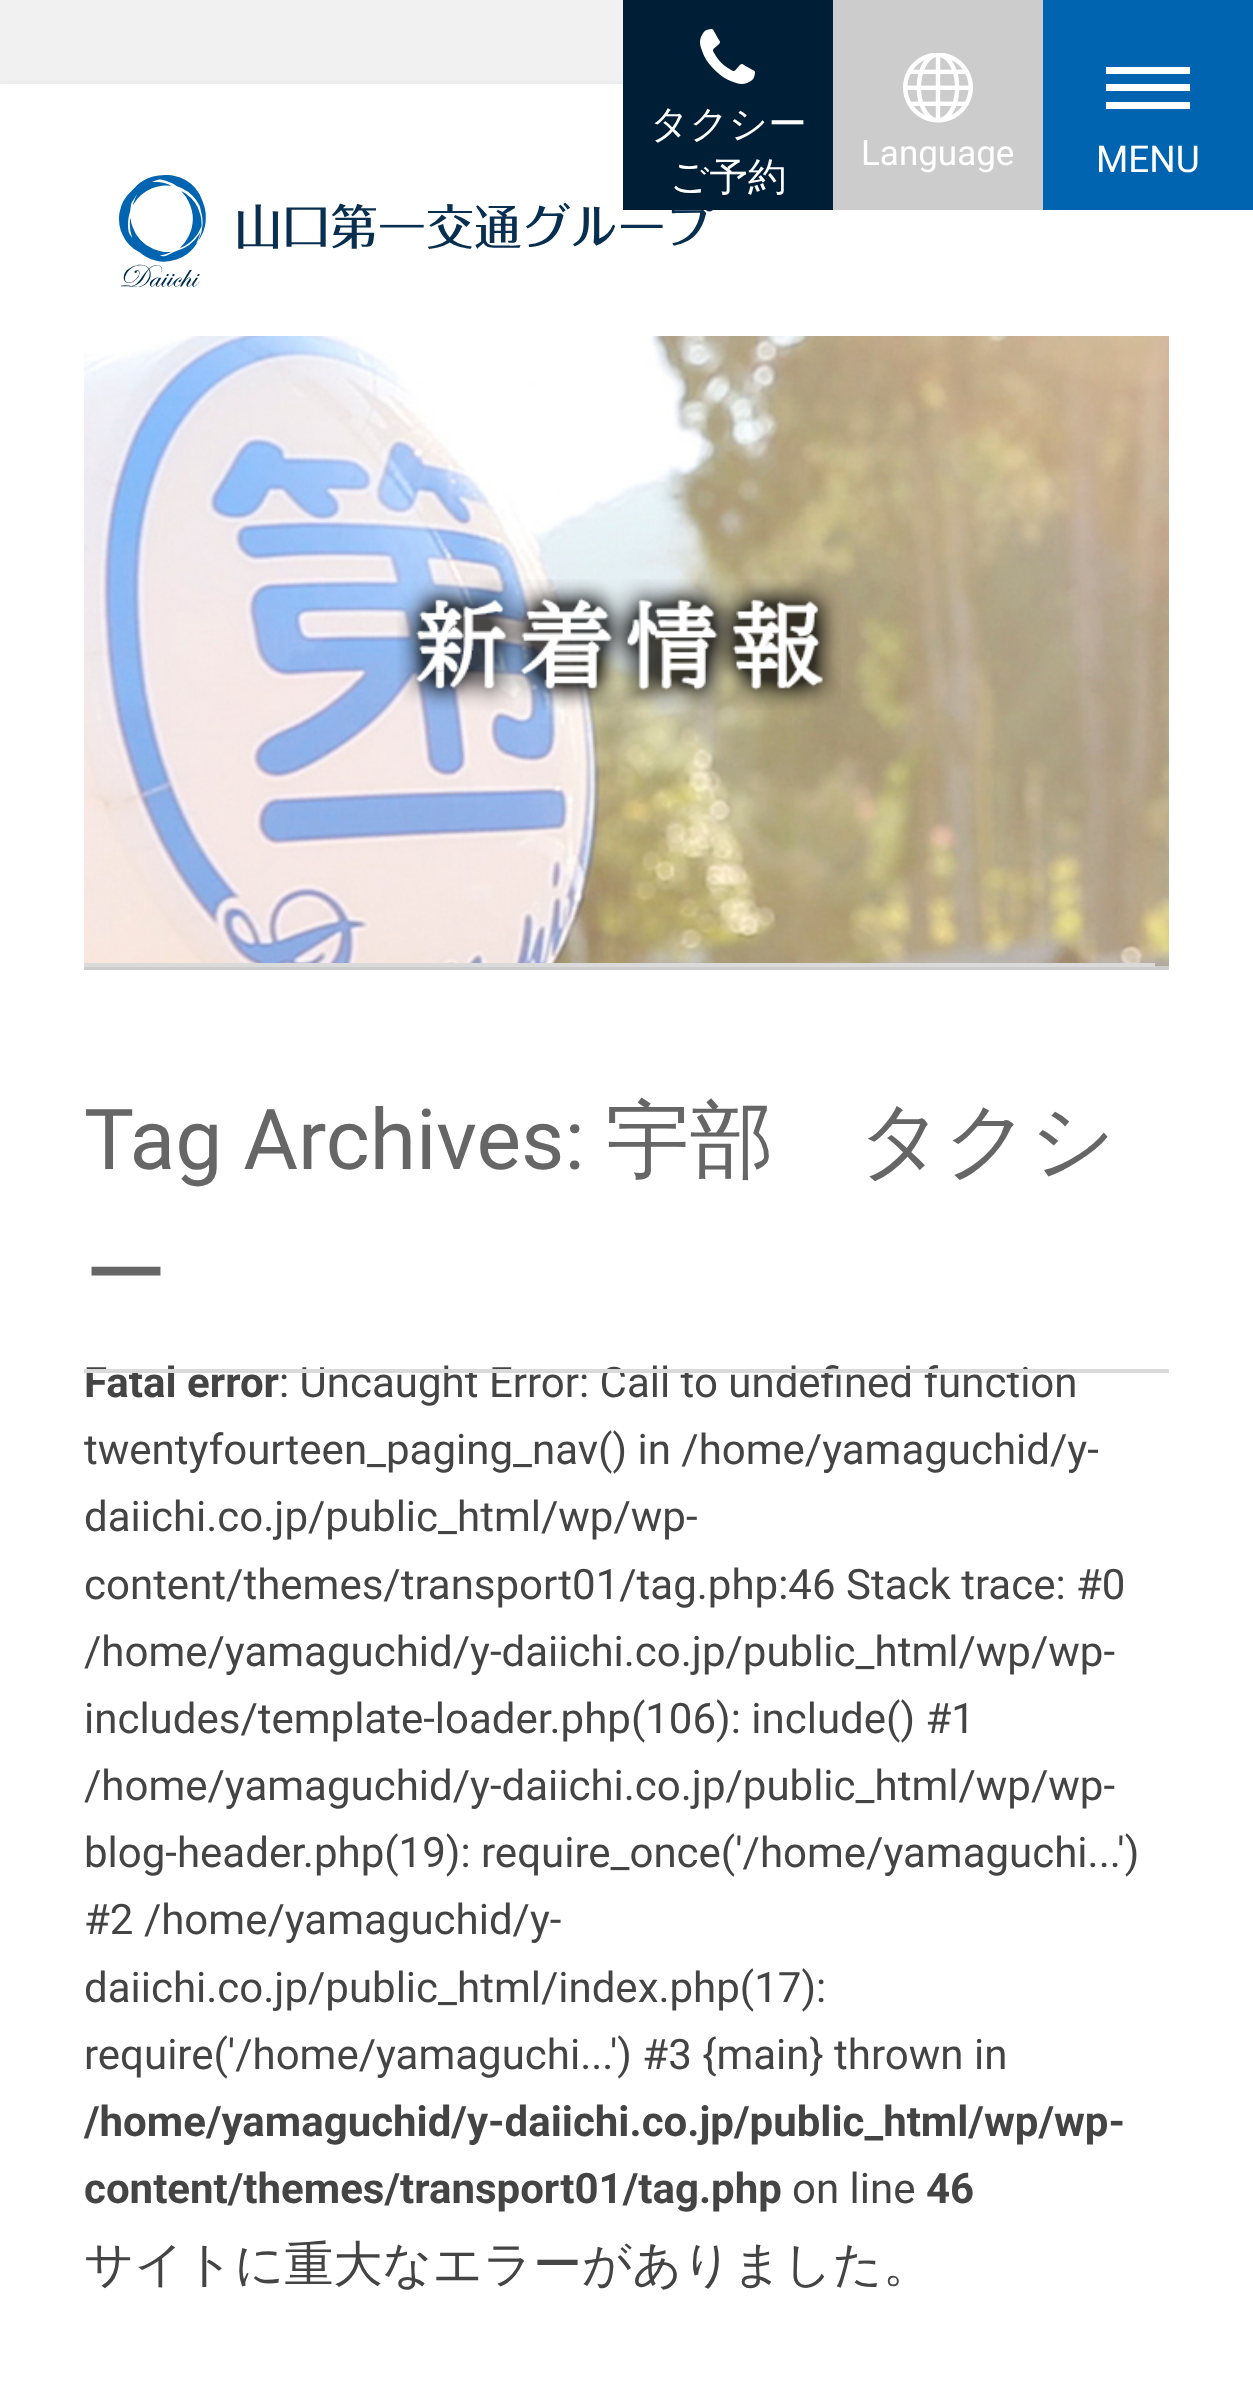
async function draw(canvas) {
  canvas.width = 1253;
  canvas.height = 2383;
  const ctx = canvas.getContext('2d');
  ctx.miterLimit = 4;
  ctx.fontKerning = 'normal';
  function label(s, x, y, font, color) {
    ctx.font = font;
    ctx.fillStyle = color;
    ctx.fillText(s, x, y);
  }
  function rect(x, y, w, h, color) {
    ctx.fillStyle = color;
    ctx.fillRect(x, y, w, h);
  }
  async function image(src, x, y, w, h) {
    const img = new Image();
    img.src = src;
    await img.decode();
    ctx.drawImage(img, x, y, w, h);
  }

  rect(0, 0, 1253, 2383, '#f1f1f1');
  ctx.fillStyle = '#00000021';
  ctx.filter = 'blur(5px)';
  ctx.beginPath();
  ctx.rect(0, 88, 1253, 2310);
  ctx.fill();
  ctx.filter = 'none';
  rect(0, 84, 1253, 2299, '#fff');
  await image('assets/img3.png', 119, 175, 594, 112);
  rect(623, 0, 210, 210, '#001f36');
  await image('assets/img1.png', 700, 29, 55, 55);
  label('タクシー', 650, 137, '500 38.5px WenQuanYi Zen Hei', '#fff');
  label('ご予約', 670, 190, '500 38.5px WenQuanYi Zen Hei', '#fff');
  rect(833, 0, 210, 210, '#ccc');
  await image('assets/img2.png', 903, 53, 70, 70);
  label('Language', 861, 165, '35px Roboto', '#fff');
  rect(1043, 0, 210, 210, '#0064b0');
  rect(1106, 84, 84, 7, '#fff');
  rect(1106, 67, 84, 7, '#fff');
  rect(1106, 102, 84, 7, '#fff');
  label('MENU', 1096, 172, '37px Roboto', '#fff');
  await image('assets/img4.png', 84, 336, 1085, 630);
  rect(84, 966, 1085, 4, '#ccc');
  rect(84, 963, 1071, 4, '#dadada');
  await image('assets/img5.png', 397, 579, 444, 131);
  label('Fatal error', 84, 1397, 'bold 42px Roboto', '#444');
  label(': Uncaught Error: Call to undefined function', 279, 1397, '42px Roboto', '#444');
  rect(84, 1369, 1085, 4, '#dadada');
  label('Tag Archives:', 84, 1169, '84px Roboto', '#666');
  label('宇部　タクシ', 606, 1169, '500 84px WenQuanYi Zen Hei', '#666');
  label('ー', 84, 1303, '500 84px WenQuanYi Zen Hei', '#666');
  label('twentyfourteen_paging_nav() in /home/yamaguchid/y-', 84, 1464, '42px Roboto', '#444');
  label('daiichi.co.jp/public_html/wp/wp-', 84, 1531, '42px Roboto', '#444');
  label('content/themes/transport01/tag.php:46 Stack trace: #0', 84, 1599, '42px Roboto', '#444');
  label('/home/yamaguchid/y-daiichi.co.jp/public_html/wp/wp-', 84, 1666, '42px Roboto', '#444');
  label('includes/template-loader.php(106): include() #1', 84, 1733, '42px Roboto', '#444');
  label('/home/yamaguchid/y-daiichi.co.jp/public_html/wp/wp-', 84, 1800, '42px Roboto', '#444');
  label('blog-header.php(19): require_once(\'/home/yamaguchi...\')', 84, 1867, '42px Roboto', '#444');
  label('#2 /home/yamaguchid/y-', 84, 1934, '42px Roboto', '#444');
  label('daiichi.co.jp/public_html/index.php(17):', 84, 2002, '42px Roboto', '#444');
  label('require(\'/home/yamaguchi...\') #3 {main} thrown in', 84, 2069, '42px Roboto', '#444');
  label('/home/yamaguchid/y-daiichi.co.jp/public_html/wp/wp-', 84, 2136, 'bold 42px Roboto', '#444');
  label('content/themes/transport01/tag.php', 84, 2203, 'bold 42px Roboto', '#444');
  label('on line', 792, 2203, '42px Roboto', '#444');
  label('46', 926, 2203, 'bold 42px Roboto', '#444');
  label('サイトに重大なエラーがありました。', 84, 2281, '500 49px WenQuanYi Zen Hei', '#444');
}

draw(document.querySelector('canvas'));
